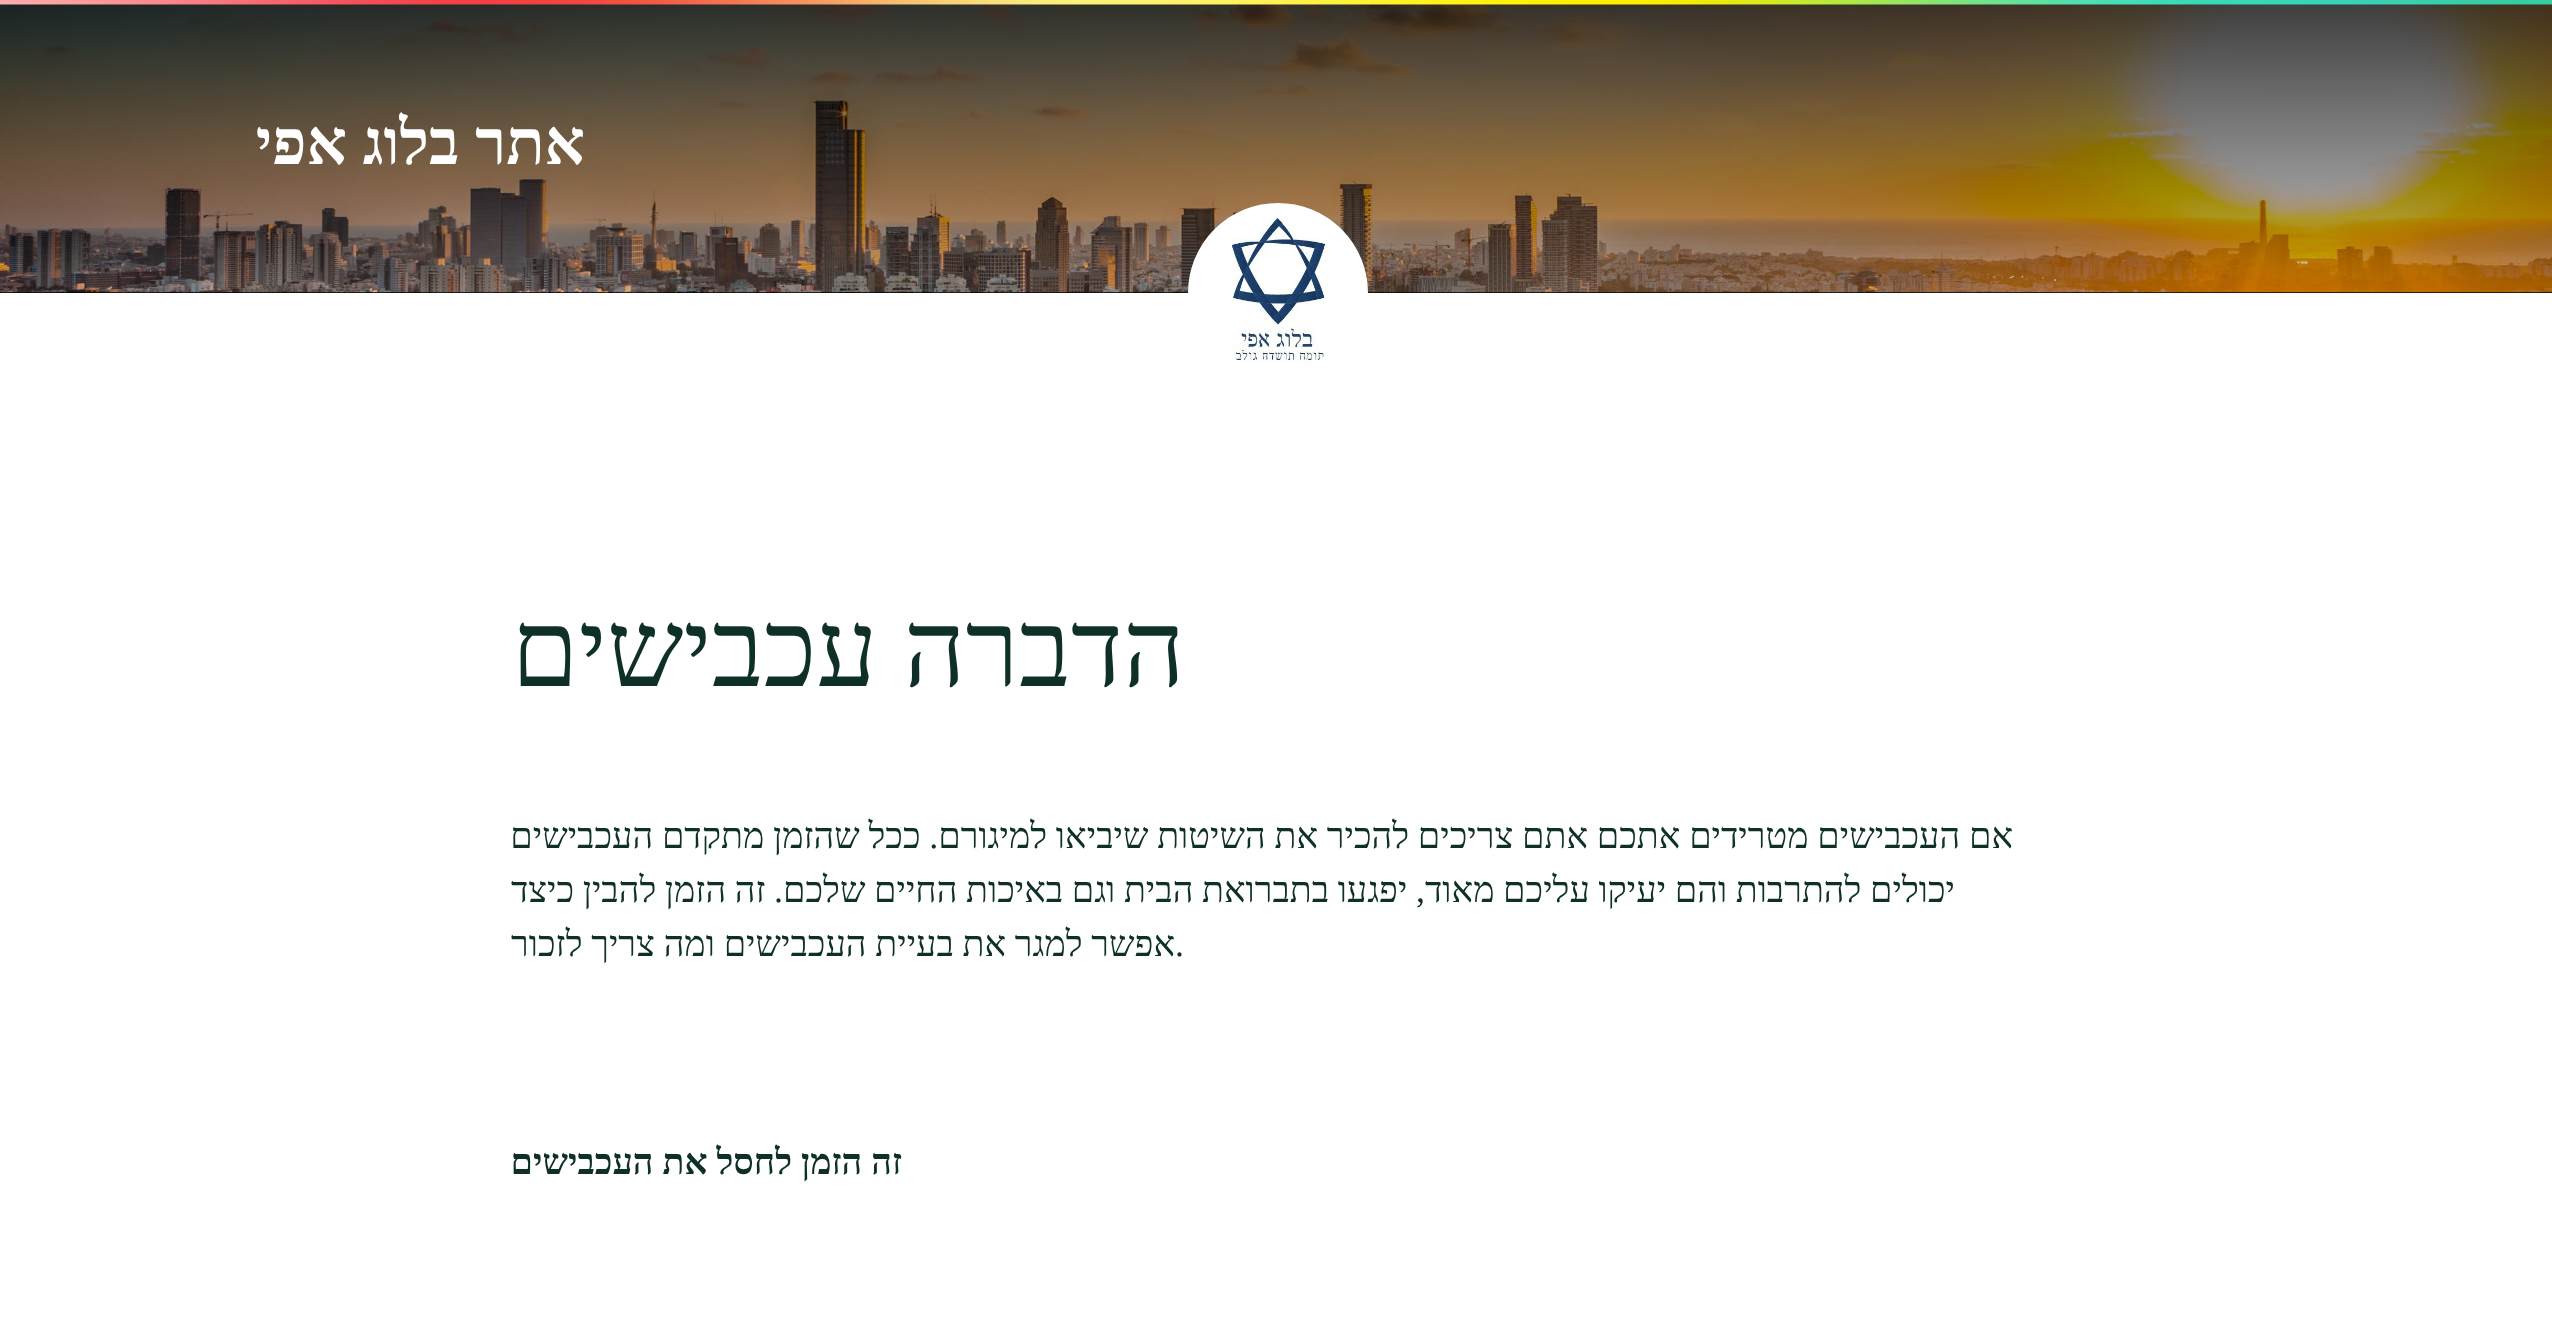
async function draw(canvas) {
  canvas.width = 2552;
  canvas.height = 1342;
  const ctx = canvas.getContext('2d');
  ctx.miterLimit = 4;
  ctx.fontKerning = 'normal';
  function label(s, x, y, font, color) {
    ctx.font = font;
    ctx.fillStyle = color;
    ctx.fillText(s, x, y);
  }
  function rect(x, y, w, h, color) {
    ctx.fillStyle = color;
    ctx.fillRect(x, y, w, h);
  }
  async function image(src, x, y, w, h) {
    const img = new Image();
    img.src = src;
    await img.decode();
    ctx.drawImage(img, x, y, w, h);
  }
  let gradient;

  rect(0, 0, 2552, 1342, '#fff');
  rect(0, 292, 2552, 1, '#000');
  await image('assets/img2.png', 0, 4, 2552, 289);
  gradient = ctx.createLinearGradient(0, 383, 0, -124);
  gradient.addColorStop(0, '#00000000');
  gradient.addColorStop(1, '#000');
  ctx.fillStyle = gradient;
  ctx.fillRect(0, 4, 2552, 289);
  await image('assets/img1.png', 0, 0, 2552, 5);
  ctx.direction = 'rtl';
  label('אתר בלוג אפי', 585, 164, 'bold 63px Liberation Serif', '#fff');
  ctx.beginPath();
  ctx.arc(1278, 293, 84.5, 0, 2 * Math.PI);
  ctx.fill();
  ctx.strokeStyle = '#fff';
  ctx.lineWidth = 11;
  ctx.stroke();
  await image('assets/img3.png', 1231, 214, 98, 150);
  ctx.wordSpacing = '-1px';
  label('הדברה עכבישים', 1185, 686, '108px Liberation Serif', '#0e3029');
  ctx.wordSpacing = '-0.25px';
  label('אם העכבישים מטרידים אתכם אתם צריכים להכיר את השיטות שיביאו למיגורם. ככל שהזמן מתקדם העכבישים', 2013, 848, '36px Liberation Serif', '#0e3029');
  ctx.wordSpacing = '-0.4px';
  label('יכולים להתרבות והם יעיקו עליכם מאוד, יפגעו בתברואת הבית וגם באיכות החיים שלכם. זה הזמן להבין כיצד', 1955, 902, '36px Liberation Serif', '#0e3029');
  ctx.wordSpacing = '0px';
  ctx.direction = 'ltr';
  label('.', 1175, 956, '36px Liberation Serif', '#0e3029');
  ctx.wordSpacing = '-0.25px';
  ctx.direction = 'rtl';
  label('אפשר למגר את בעיית העכבישים ומה צריך לזכור', 1175, 956, '36px Liberation Serif', '#0e3029');
  ctx.wordSpacing = '0px';
  label('זה הזמן לחסל את העכבישים', 902, 1174, 'bold 36px Liberation Serif', '#0e3029');
}

draw(document.querySelector('canvas'));
